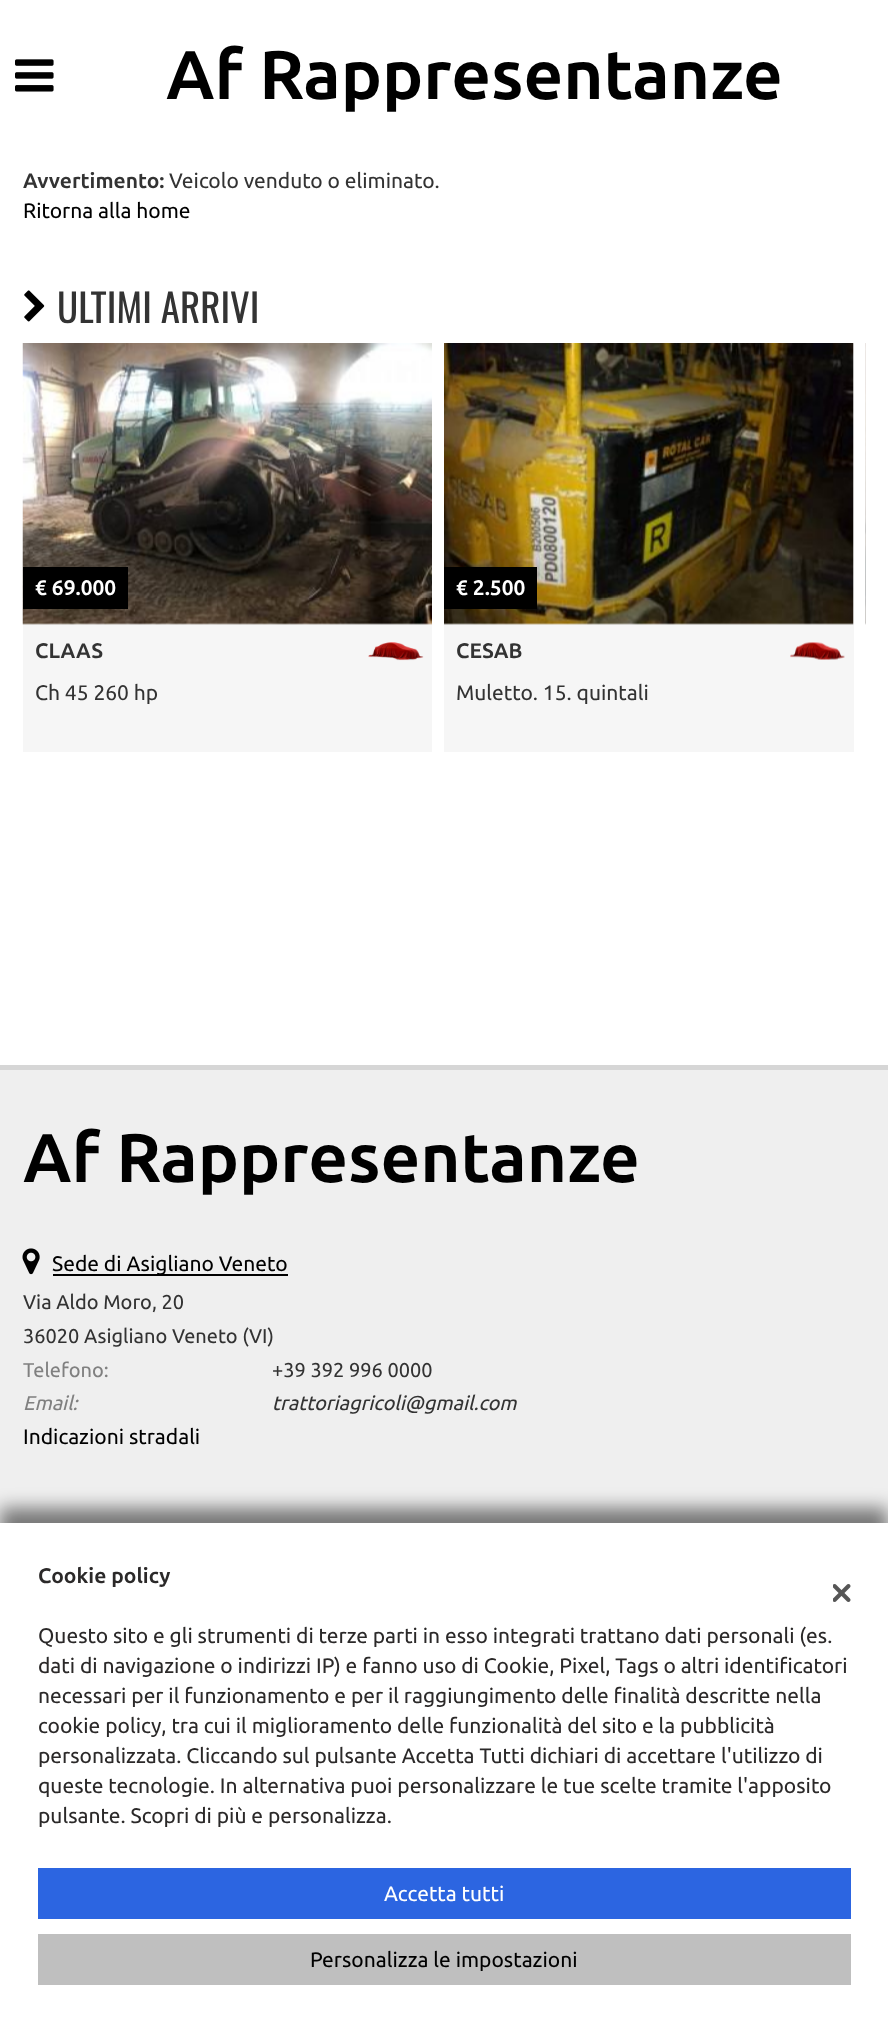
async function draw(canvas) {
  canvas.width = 888;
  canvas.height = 2037;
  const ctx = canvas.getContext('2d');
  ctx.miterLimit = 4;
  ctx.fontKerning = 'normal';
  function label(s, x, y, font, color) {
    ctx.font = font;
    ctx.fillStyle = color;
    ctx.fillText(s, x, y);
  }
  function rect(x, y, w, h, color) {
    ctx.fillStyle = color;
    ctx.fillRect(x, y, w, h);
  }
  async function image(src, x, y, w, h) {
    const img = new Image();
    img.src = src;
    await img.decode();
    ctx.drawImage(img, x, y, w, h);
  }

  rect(0, 0, 888, 2037, '#fff');
  await image('assets/img1.png', 15, 59, 39, 33);
  label('Af Rappresentanze', 166, 99, 'bold 69px Ubuntu', '#000');
  label('Avvertimento:', 23, 188, 'bold 21px Ubuntu', '#333');
  label('Veicolo venduto o eliminato.', 169, 188, '21px Ubuntu', '#333');
  label('Ritorna alla home', 23, 218, '21px Ubuntu', '#000');
  await image('assets/img2.png', 24, 290, 21, 32);
  label('ULTIMI ARRIVI', 57, 323, '39px Oswald', '#333');
  await image('assets/img3.png', 865, 343, 1, 282);
  rect(23, 623, 409, 129, '#f6f6f6');
  await image('assets/img4.png', 22, 343, 410, 282);
  rect(23, 567, 105, 42, '#000');
  label('€ 69.000', 35, 595, 'bold 21px Ubuntu', '#fff');
  label('CLAAS', 35, 658, 'bold 21px Ubuntu', '#333');
  await image('assets/img5.png', 368, 642, 56, 19);
  label('Ch 45 260 hp', 35, 700, '21px Ubuntu', '#333');
  rect(444, 344, 410, 408, '#f6f6f6');
  await image('assets/img6.png', 444, 343, 410, 282);
  rect(444, 567, 93, 42, '#000');
  label('€ 2.500', 456, 595, 'bold 21px Ubuntu', '#fff');
  label('CESAB', 456, 658, 'bold 21px Ubuntu', '#333');
  await image('assets/img7.png', 790, 642, 55, 18);
  label('Muletto. 15. quintali', 456, 700, '21px Ubuntu', '#333');
  rect(0, 1070, 888, 453, '#efefef');
  rect(0, 1065, 888, 5, '#d6d6d6');
  label('Af Rappresentanze', 23, 1182, 'bold 69px Ubuntu', '#000');
  await image('assets/img8.png', 22, 1248, 18, 27);
  rect(53, 1274, 235, 2, '#000');
  label('Sede di Asigliano Veneto', 52, 1271, '21px Ubuntu', '#000');
  label('Via Aldo Moro, 20', 23, 1309, '20px Ubuntu', '#333');
  label('36020 Asigliano Veneto (VI)', 23, 1343, '20px Ubuntu', '#333');
  label('Telefono:', 23, 1377, '20px Ubuntu', '#808080');
  label('+39 392 996 0000', 272, 1377, '20px Ubuntu', '#333');
  label('Email:', 23, 1410, 'italic 20px Ubuntu', '#808080');
  label('trattoriagricoli@gmail.com', 272, 1410, 'italic 20px Ubuntu', '#333');
  label('Indicazioni stradali', 23, 1444, '21px Ubuntu', '#000');
  ctx.fillStyle = '#00000080';
  ctx.filter = 'blur(9px)';
  ctx.beginPath();
  ctx.rect(0, 1508, 888, 514);
  ctx.fill();
  ctx.filter = 'none';
  rect(0, 1523, 888, 514, '#fff');
  label('Cookie policy', 38, 1583, 'bold 21px Ubuntu', '#2b2929');
  label('Questo sito e gli strumenti di terze parti in esso integrati trattano dati personali (es.', 38, 1643, '21px Ubuntu', '#2b2929');
  label('dati di navigazione o indirizzi IP) e fanno uso di Cookie, Pixel, Tags o altri identificatori', 38, 1673, '21px Ubuntu', '#2b2929');
  label('necessari per il funzionamento e per il raggiungimento delle finalità descritte nella', 38, 1703, '21px Ubuntu', '#2b2929');
  label('cookie policy, tra cui il miglioramento delle funzionalità del sito e la pubblicità', 38, 1733, '21px Ubuntu', '#2b2929');
  label('personalizzata. Cliccando sul pulsante Accetta Tutti dichiari di accettare l\'utilizzo di', 38, 1763, '21px Ubuntu', '#2b2929');
  label('queste tecnologie. In alternativa puoi personalizzare le tue scelte tramite l\'apposito', 38, 1793, '21px Ubuntu', '#2b2929');
  label('pulsante. Scopri di più e personalizza.', 38, 1823, '21px Ubuntu', '#2b2929');
  await image('assets/img9.png', 833, 1584, 18, 18);
  rect(38, 1868, 813, 51, '#2c65e1');
  label('Accetta tutti', 384, 1901, '21px Ubuntu', '#fff');
  rect(38, 1934, 813, 51, '#bfbfbf');
  label('Personalizza le impostazioni', 310, 1967, '21px Ubuntu', '#000');
}

draw(document.querySelector('canvas'));
